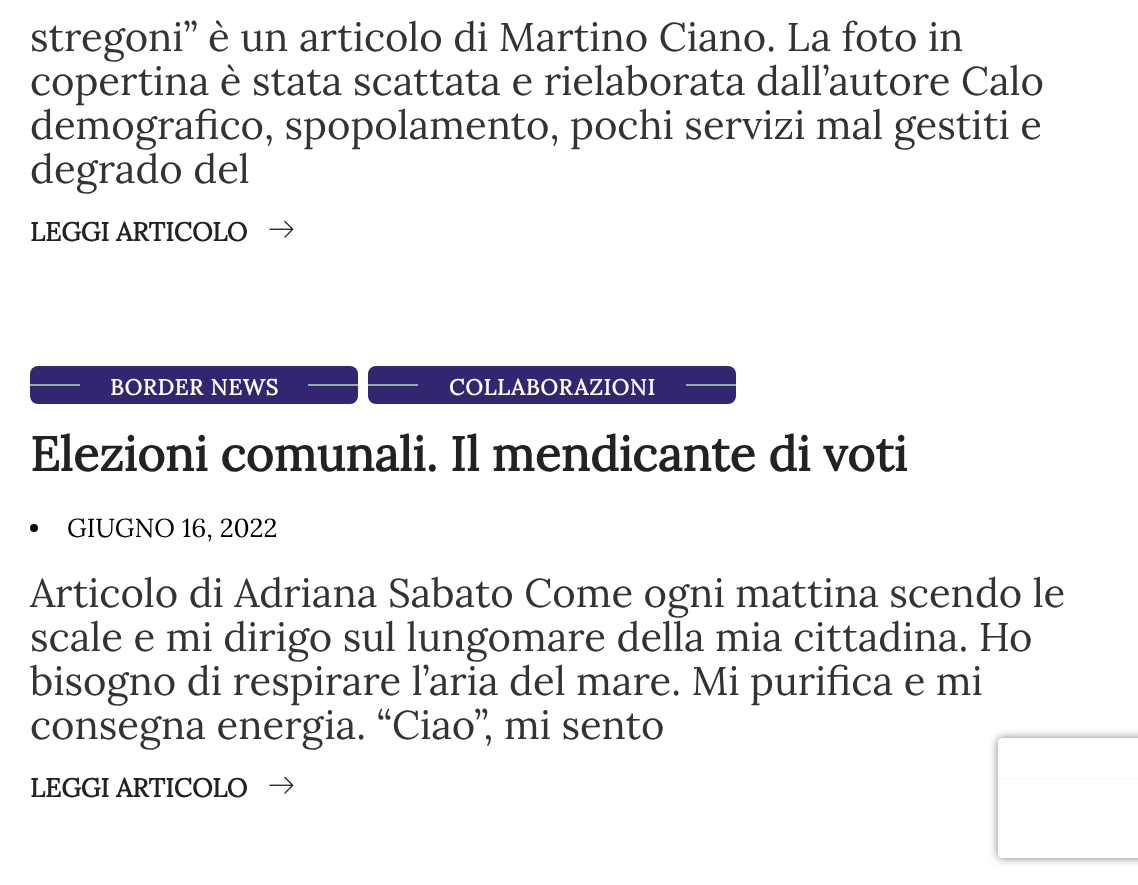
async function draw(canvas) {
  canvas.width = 1138;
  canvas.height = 885;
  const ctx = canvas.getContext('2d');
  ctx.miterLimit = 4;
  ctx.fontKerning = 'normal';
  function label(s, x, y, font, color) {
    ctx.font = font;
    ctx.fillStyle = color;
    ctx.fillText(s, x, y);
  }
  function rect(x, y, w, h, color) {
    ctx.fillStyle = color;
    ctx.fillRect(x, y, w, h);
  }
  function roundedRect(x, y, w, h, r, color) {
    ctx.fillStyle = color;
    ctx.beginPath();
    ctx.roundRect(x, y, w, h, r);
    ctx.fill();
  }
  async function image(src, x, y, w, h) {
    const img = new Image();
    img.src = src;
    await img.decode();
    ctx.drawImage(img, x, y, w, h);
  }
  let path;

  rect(0, 0, 1138, 885, '#fff');
  label('stregoni” è un articolo di Martino Ciano. La foto in', 30, 51, '40px Lora', '#333');
  label('copertina è stata scattata e rielaborata dall’autore Calo', 30, 95, '40px Lora', '#333');
  label('demografico, spopolamento, pochi servizi mal gestiti e', 30, 139, '40px Lora', '#333');
  label('degrado del', 30, 183, '40px Lora', '#333');
  label('LEGGI ARTICOLO', 30, 241, 'bold 26px Lora', '#222');
  await image('assets/img1.png', 269, 220, 25, 18);
  roundedRect(30, 366, 328, 38, 8, '#332570');
  rect(30, 384, 50, 2, '#8db392');
  ctx.letterSpacing = '0.9px';
  label('BORDER NEWS', 110, 395, 'bold 22px Lora', '#fff');
  rect(308, 384, 50, 2, '#8db392');
  roundedRect(368, 366, 368, 38, 8, '#332570');
  rect(368, 384, 50, 2, '#8db392');
  label('COLLABORAZIONI', 449, 395, 'bold 22px Lora', '#fff');
  rect(686, 384, 50, 2, '#8db392');
  ctx.letterSpacing = '0px';
  label('Elezioni comunali. Il mendicante di voti', 30, 471, 'bold 48px Lora', '#222');
  ctx.fillStyle = '#101010';
  ctx.beginPath();
  ctx.arc(34, 528, 4, 0, 2 * Math.PI);
  ctx.fill();
  label('GIUGNO 16, 2022', 67, 537, '26px Lora', '#000');
  label('Articolo di Adriana Sabato Come ogni mattina scendo le', 30, 607, '40px Lora', '#333');
  label('scale e mi dirigo sul lungomare della mia cittadina. Ho', 30, 651, '40px Lora', '#333');
  label('bisogno di respirare l’aria del mare. Mi purifica e mi', 30, 695, '40px Lora', '#333');
  label('consegna energia. “Ciao”, mi sento', 30, 739, '40px Lora', '#333');
  label('LEGGI ARTICOLO', 30, 797, 'bold 26px Lora', '#222');
  await image('assets/img1.png', 269, 776, 25, 18);
  ctx.save();
  path = new Path2D('M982 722H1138V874H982ZM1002 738H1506C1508 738 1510 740 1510 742V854C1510 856 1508 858 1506 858H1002C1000 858 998 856 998 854V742C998 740 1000 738 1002 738Z');
  ctx.clip(path, 'evenodd');
  ctx.fillStyle = '#808080';
  ctx.filter = 'blur(5px)';
  ctx.beginPath();
  ctx.roundRect(998, 738, 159, 120, 4);
  ctx.fill();
  ctx.filter = 'none';
  ctx.restore();
  ctx.fillStyle = '#fbfbfb';
  path = new Path2D('M1000 780H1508V857L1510 855V778H998V855L1000 857Z');
  ctx.fill(path);
}

draw(document.querySelector('canvas'));
